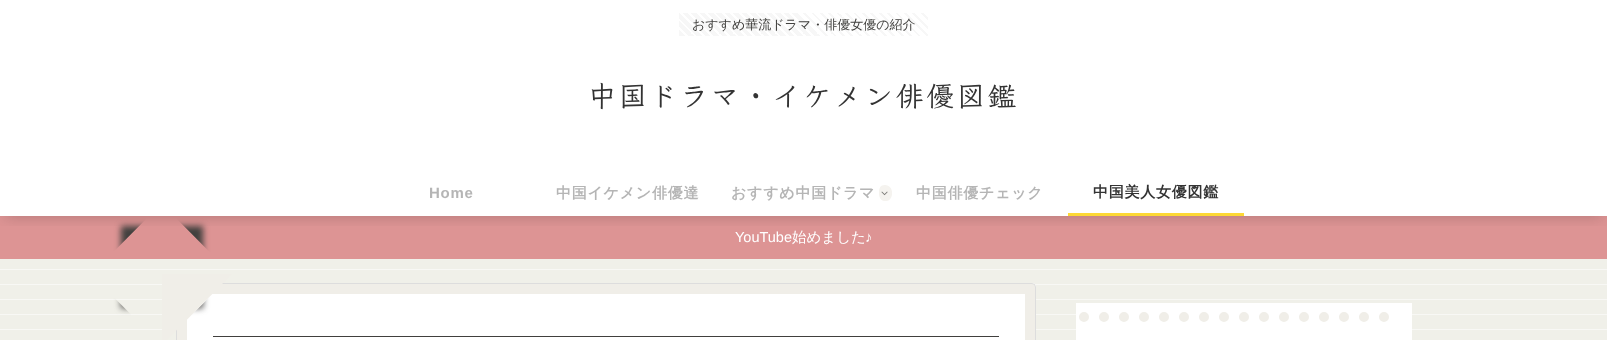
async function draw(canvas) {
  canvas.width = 1607;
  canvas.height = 340;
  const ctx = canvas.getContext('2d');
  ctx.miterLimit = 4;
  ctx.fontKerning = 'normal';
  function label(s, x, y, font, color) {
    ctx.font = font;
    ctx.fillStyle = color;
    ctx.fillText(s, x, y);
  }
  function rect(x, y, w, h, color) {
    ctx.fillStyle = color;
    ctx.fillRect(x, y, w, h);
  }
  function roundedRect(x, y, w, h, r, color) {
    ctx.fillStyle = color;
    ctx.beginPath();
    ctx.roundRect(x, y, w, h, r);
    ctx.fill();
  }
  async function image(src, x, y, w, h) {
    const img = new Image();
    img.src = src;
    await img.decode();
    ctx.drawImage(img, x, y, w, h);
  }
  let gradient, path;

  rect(0, 0, 1607, 340, '#f0f0e9');
  await image('assets/img1.png', 0, 269, 1607, 61);
  rect(0, 0, 1607, 216, '#fff');
  gradient = ctx.createLinearGradient(736, 92, 876, -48);
  gradient.addColorStop(0, '#f7f7f7');
  gradient.addColorStop(0.02, '#f7f7f7');
  gradient.addColorStop(0.02, '#fff');
  gradient.addColorStop(0.03, '#fff');
  gradient.addColorStop(0.03, '#f7f7f7');
  gradient.addColorStop(0.05, '#f7f7f7');
  gradient.addColorStop(0.05, '#fff');
  gradient.addColorStop(0.06, '#fff');
  gradient.addColorStop(0.06, '#f7f7f7');
  gradient.addColorStop(0.08, '#f7f7f7');
  gradient.addColorStop(0.08, '#fff');
  gradient.addColorStop(0.09, '#fff');
  gradient.addColorStop(0.09, '#f7f7f7');
  gradient.addColorStop(0.11, '#f7f7f7');
  gradient.addColorStop(0.11, '#fff');
  gradient.addColorStop(0.12, '#fff');
  gradient.addColorStop(0.12, '#f7f7f7');
  gradient.addColorStop(0.14, '#f7f7f7');
  gradient.addColorStop(0.14, '#fff');
  gradient.addColorStop(0.15, '#fff');
  gradient.addColorStop(0.15, '#f7f7f7');
  gradient.addColorStop(0.17, '#f7f7f7');
  gradient.addColorStop(0.17, '#fff');
  gradient.addColorStop(0.18, '#fff');
  gradient.addColorStop(0.18, '#f7f7f7');
  gradient.addColorStop(0.2, '#f7f7f7');
  gradient.addColorStop(0.2, '#fff');
  gradient.addColorStop(0.21, '#fff');
  gradient.addColorStop(0.21, '#f7f7f7');
  gradient.addColorStop(0.23, '#f7f7f7');
  gradient.addColorStop(0.23, '#fff');
  gradient.addColorStop(0.24, '#fff');
  gradient.addColorStop(0.24, '#f7f7f7');
  gradient.addColorStop(0.26, '#f7f7f7');
  gradient.addColorStop(0.26, '#fff');
  gradient.addColorStop(0.27, '#fff');
  gradient.addColorStop(0.27, '#f7f7f7');
  gradient.addColorStop(0.29, '#f7f7f7');
  gradient.addColorStop(0.29, '#fff');
  gradient.addColorStop(0.3, '#fff');
  gradient.addColorStop(0.3, '#f7f7f7');
  gradient.addColorStop(0.32, '#f7f7f7');
  gradient.addColorStop(0.32, '#fff');
  gradient.addColorStop(0.33, '#fff');
  gradient.addColorStop(0.33, '#f7f7f7');
  gradient.addColorStop(0.35, '#f7f7f7');
  gradient.addColorStop(0.35, '#fff');
  gradient.addColorStop(0.36, '#fff');
  gradient.addColorStop(0.36, '#f7f7f7');
  gradient.addColorStop(0.38, '#f7f7f7');
  gradient.addColorStop(0.38, '#fff');
  gradient.addColorStop(0.39, '#fff');
  gradient.addColorStop(0.39, '#f7f7f7');
  gradient.addColorStop(0.41, '#f7f7f7');
  gradient.addColorStop(0.41, '#fff');
  gradient.addColorStop(0.42, '#fff');
  gradient.addColorStop(0.42, '#f7f7f7');
  gradient.addColorStop(0.44, '#f7f7f7');
  gradient.addColorStop(0.44, '#fff');
  gradient.addColorStop(0.45, '#fff');
  gradient.addColorStop(0.45, '#f7f7f7');
  gradient.addColorStop(0.47, '#f7f7f7');
  gradient.addColorStop(0.47, '#fff');
  gradient.addColorStop(0.48, '#fff');
  gradient.addColorStop(0.48, '#f7f7f7');
  gradient.addColorStop(0.5, '#f7f7f7');
  gradient.addColorStop(0.5, '#fff');
  gradient.addColorStop(0.52, '#fff');
  gradient.addColorStop(0.52, '#f7f7f7');
  gradient.addColorStop(0.53, '#f7f7f7');
  gradient.addColorStop(0.53, '#fff');
  gradient.addColorStop(0.55, '#fff');
  gradient.addColorStop(0.55, '#f7f7f7');
  gradient.addColorStop(0.56, '#f7f7f7');
  gradient.addColorStop(0.56, '#fff');
  gradient.addColorStop(0.58, '#fff');
  gradient.addColorStop(0.58, '#f7f7f7');
  gradient.addColorStop(0.59, '#f7f7f7');
  gradient.addColorStop(0.59, '#fff');
  gradient.addColorStop(0.61, '#fff');
  gradient.addColorStop(0.61, '#f7f7f7');
  gradient.addColorStop(0.62, '#f7f7f7');
  gradient.addColorStop(0.62, '#fff');
  gradient.addColorStop(0.64, '#fff');
  gradient.addColorStop(0.64, '#f7f7f7');
  gradient.addColorStop(0.65, '#f7f7f7');
  gradient.addColorStop(0.65, '#fff');
  gradient.addColorStop(0.67, '#fff');
  gradient.addColorStop(0.67, '#f7f7f7');
  gradient.addColorStop(0.68, '#f7f7f7');
  gradient.addColorStop(0.68, '#fff');
  gradient.addColorStop(0.7, '#fff');
  gradient.addColorStop(0.7, '#f7f7f7');
  gradient.addColorStop(0.71, '#f7f7f7');
  gradient.addColorStop(0.71, '#fff');
  gradient.addColorStop(0.73, '#fff');
  gradient.addColorStop(0.73, '#f7f7f7');
  gradient.addColorStop(0.74, '#f7f7f7');
  gradient.addColorStop(0.74, '#fff');
  gradient.addColorStop(0.76, '#fff');
  gradient.addColorStop(0.76, '#f7f7f7');
  gradient.addColorStop(0.77, '#f7f7f7');
  gradient.addColorStop(0.77, '#fff');
  gradient.addColorStop(0.79, '#fff');
  gradient.addColorStop(0.79, '#f7f7f7');
  gradient.addColorStop(0.8, '#f7f7f7');
  gradient.addColorStop(0.8, '#fff');
  gradient.addColorStop(0.82, '#fff');
  gradient.addColorStop(0.82, '#f7f7f7');
  gradient.addColorStop(0.83, '#f7f7f7');
  gradient.addColorStop(0.83, '#fff');
  gradient.addColorStop(0.85, '#fff');
  gradient.addColorStop(0.85, '#f7f7f7');
  gradient.addColorStop(0.86, '#f7f7f7');
  gradient.addColorStop(0.86, '#fff');
  gradient.addColorStop(0.88, '#fff');
  gradient.addColorStop(0.88, '#f7f7f7');
  gradient.addColorStop(0.89, '#f7f7f7');
  gradient.addColorStop(0.89, '#fff');
  gradient.addColorStop(0.91, '#fff');
  gradient.addColorStop(0.91, '#f7f7f7');
  gradient.addColorStop(0.92, '#f7f7f7');
  gradient.addColorStop(0.92, '#fff');
  gradient.addColorStop(0.94, '#fff');
  gradient.addColorStop(0.94, '#f7f7f7');
  gradient.addColorStop(0.95, '#f7f7f7');
  gradient.addColorStop(0.95, '#fff');
  gradient.addColorStop(0.97, '#fff');
  gradient.addColorStop(0.97, '#f7f7f7');
  gradient.addColorStop(0.98, '#f7f7f7');
  gradient.addColorStop(0.98, '#fff');
  gradient.addColorStop(1, '#fff');
  ctx.fillStyle = gradient;
  ctx.fillRect(679, 13, 249, 23);
  label('おすすめ華流ドラマ・俳優女優の紹介', 692, 29, '500 13px WenQuanYi Zen Hei', '#41403e');
  ctx.letterSpacing = '2.75px';
  label('中国ドラマ・イケメン俳優図鑑', 588, 106, '600 28px Klee One', '#333');
  rect(0, 216, 1607, 43, '#dd9494');
  ctx.save();
  ctx.beginPath();
  ctx.rect(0, 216, 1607, 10);
  ctx.clip();
  ctx.fillStyle = '#00000033';
  ctx.filter = 'blur(7.5px)';
  ctx.beginPath();
  ctx.rect(5, 180, 1597, 36);
  ctx.fill();
  ctx.filter = 'none';
  ctx.restore();
  ctx.letterSpacing = '0.75px';
  label('Home', 429, 198, 'bold 15px Liberation Sans', '#b5b5b5');
  label('中国イケメン俳優達', 556, 198, 'bold 15px WenQuanYi Zen Hei', '#b5b5b5');
  label('おすすめ中国ドラマ', 731, 198, 'bold 15px WenQuanYi Zen Hei', '#b5b5b5');
  ctx.fillStyle = '#f5f3ef';
  path = new Path2D('M885 185C894.5 185 894 200.5 886.5 201C881 201.5 879 198 879 193C879 188.5 880 185 885 185Z');
  ctx.fill(path);
  await image('assets/img2.png', 881, 191, 7, 5);
  label('中国俳優チェック', 916, 198, 'bold 15px WenQuanYi Zen Hei', '#b5b5b5');
  rect(1068, 213, 176, 3, '#fdd835');
  label('中国美人女優図鑑', 1093, 197, 'bold 15px WenQuanYi Zen Hei', '#333');
  roundedRect(176, 283, 860, 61, 4, '#fff');
  path = new Path2D('M182 289H1030V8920H182Z');
  ctx.strokeStyle = '#f0eee8';
  ctx.lineWidth = 10;
  ctx.stroke(path);
  ctx.beginPath();
  ctx.roundRect(176.5, 283.5, 859, 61, 3.5);
  ctx.strokeStyle = '#ddd';
  ctx.lineWidth = 1;
  ctx.stroke();
  ctx.save();
  path = new Path2D('M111 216H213V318H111ZM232 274.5L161.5 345L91 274.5L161.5 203.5Z');
  ctx.clip(path, 'evenodd');
  ctx.fillStyle = '#41403e';
  ctx.filter = 'blur(3px)';
  ctx.beginPath();
  ctx.rect(121, 226, 82, 82);
  ctx.fill();
  ctx.filter = 'none';
  ctx.restore();
  rect(213, 336, 786, 1, '#41403e');
  ctx.fillStyle = '#f0eee8';
  path = new Path2D('M232 274L162 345V274Z');
  ctx.fill(path);
  rect(1076, 303, 336, 37, '#fff');
  path = new Path2D('M1084 317H1403');
  ctx.strokeStyle = '#f0eee8';
  ctx.lineWidth = 10;
  ctx.lineCap = 'round';
  ctx.setLineDash([0, 20]);
  ctx.stroke(path);
  ctx.letterSpacing = '0px';
  label('YouTube', 735, 242, '14.5px Liberation Sans', '#fff');
  label('始めました', 792, 242, '500 14.5px WenQuanYi Zen Hei', '#fff');
  label('♪', 865, 242, '14.5px Liberation Sans', '#fff');
}

draw(document.querySelector('canvas'));
